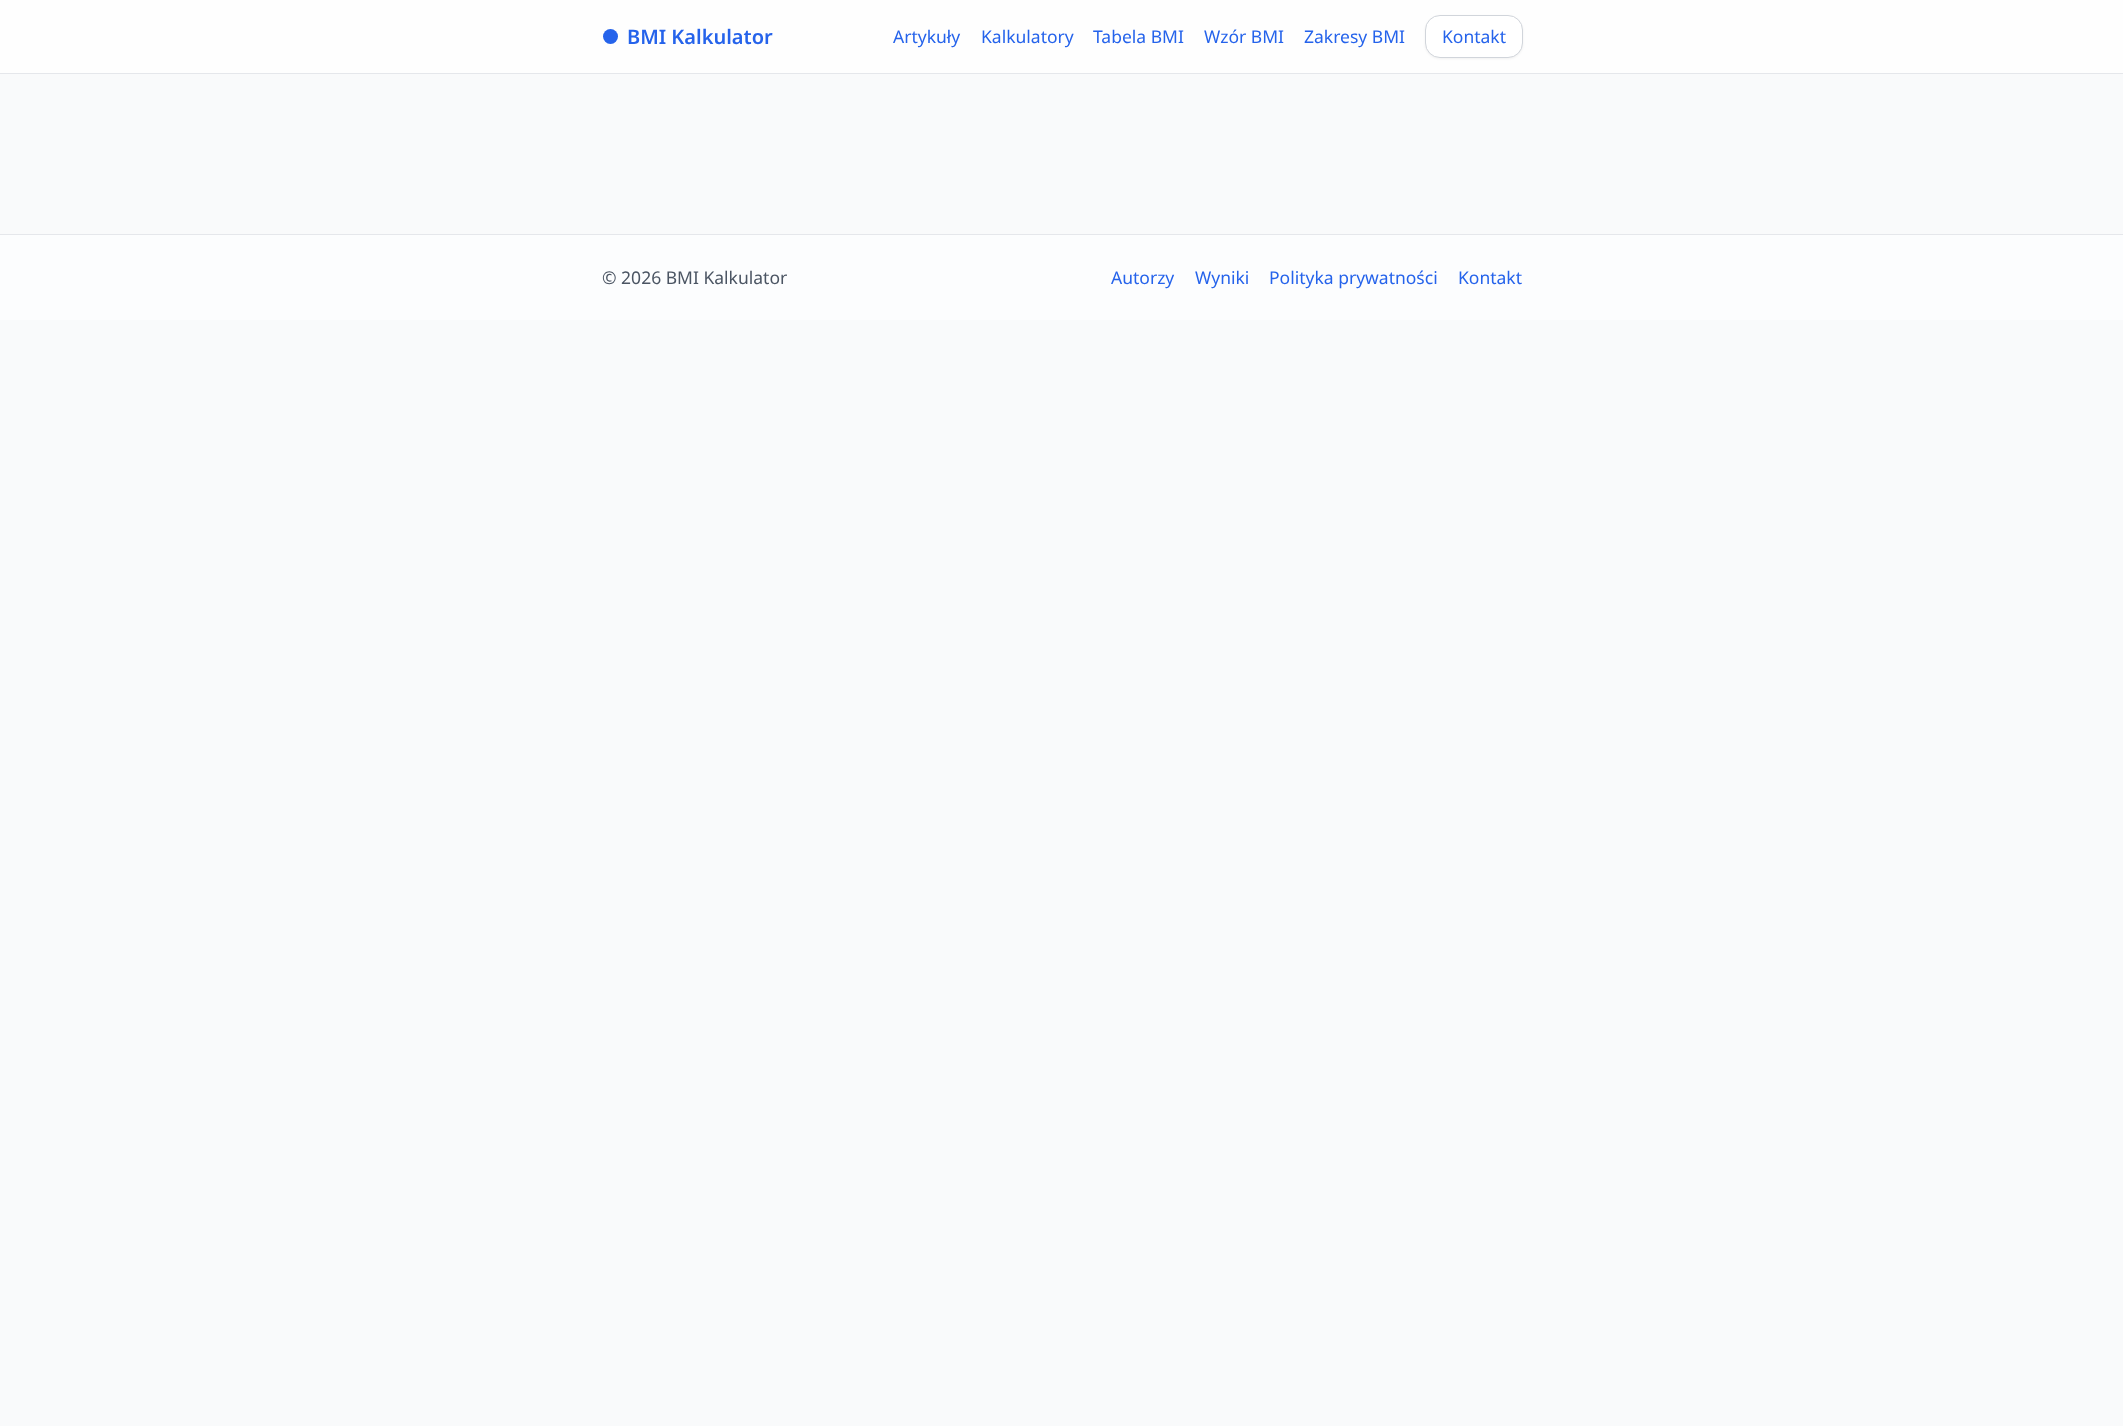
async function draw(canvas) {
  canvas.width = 2123;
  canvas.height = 1426;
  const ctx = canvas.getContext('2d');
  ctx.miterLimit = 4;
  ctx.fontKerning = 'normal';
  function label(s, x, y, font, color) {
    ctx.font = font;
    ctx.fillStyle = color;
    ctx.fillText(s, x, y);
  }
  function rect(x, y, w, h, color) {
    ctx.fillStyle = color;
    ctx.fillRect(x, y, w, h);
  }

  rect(0, 0, 2123, 1426, '#f9fafb');
  rect(0, 0, 2123, 73, '#fefefe');
  rect(0, 73, 2123, 1, '#e5e7eb');
  ctx.fillStyle = '#2563eb';
  ctx.beginPath();
  ctx.arc(610.5, 36.5, 7.5, 0, 2 * Math.PI);
  ctx.fill();
  label('BMI Kalkulator', 627, 44, '600 20px Noto Sans', '#2563eb');
  label('Artykuły', 893, 43, '17.5px Noto Sans', '#2563eb');
  label('Kalkulatory', 981, 43, '17.5px Noto Sans', '#2563eb');
  label('Tabela BMI', 1093, 43, '17.5px Noto Sans', '#2563eb');
  label('Wzór BMI', 1204, 43, '17.5px Noto Sans', '#2563eb');
  label('Zakresy BMI', 1304, 43, '17.5px Noto Sans', '#2563eb');
  ctx.fillStyle = '#0000000d';
  ctx.filter = 'blur(1px)';
  ctx.beginPath();
  ctx.roundRect(1425, 16, 98, 43, 15);
  ctx.fill();
  ctx.filter = 'none';
  ctx.fillStyle = '#fff';
  ctx.beginPath();
  ctx.roundRect(1425.5, 15.5, 97, 42, 14.5);
  ctx.fill();
  ctx.strokeStyle = '#d1d5db';
  ctx.stroke();
  label('Kontakt', 1442, 43, '17.5px Noto Sans', '#2563eb');
  rect(0, 235, 2123, 85, '#fcfdfe');
  rect(0, 234, 2123, 1, '#e5e7eb');
  label('© 2026 BMI Kalkulator', 602, 284, '17.5px Noto Sans', '#4b5563');
  label('Autorzy', 1111, 284, '17.5px Noto Sans', '#2563eb');
  label('Wyniki', 1195, 284, '17.5px Noto Sans', '#2563eb');
  label('Polityka prywatności', 1269, 284, '17.5px Noto Sans', '#2563eb');
  label('Kontakt', 1458, 284, '17.5px Noto Sans', '#2563eb');
}

draw(document.querySelector('canvas'));
